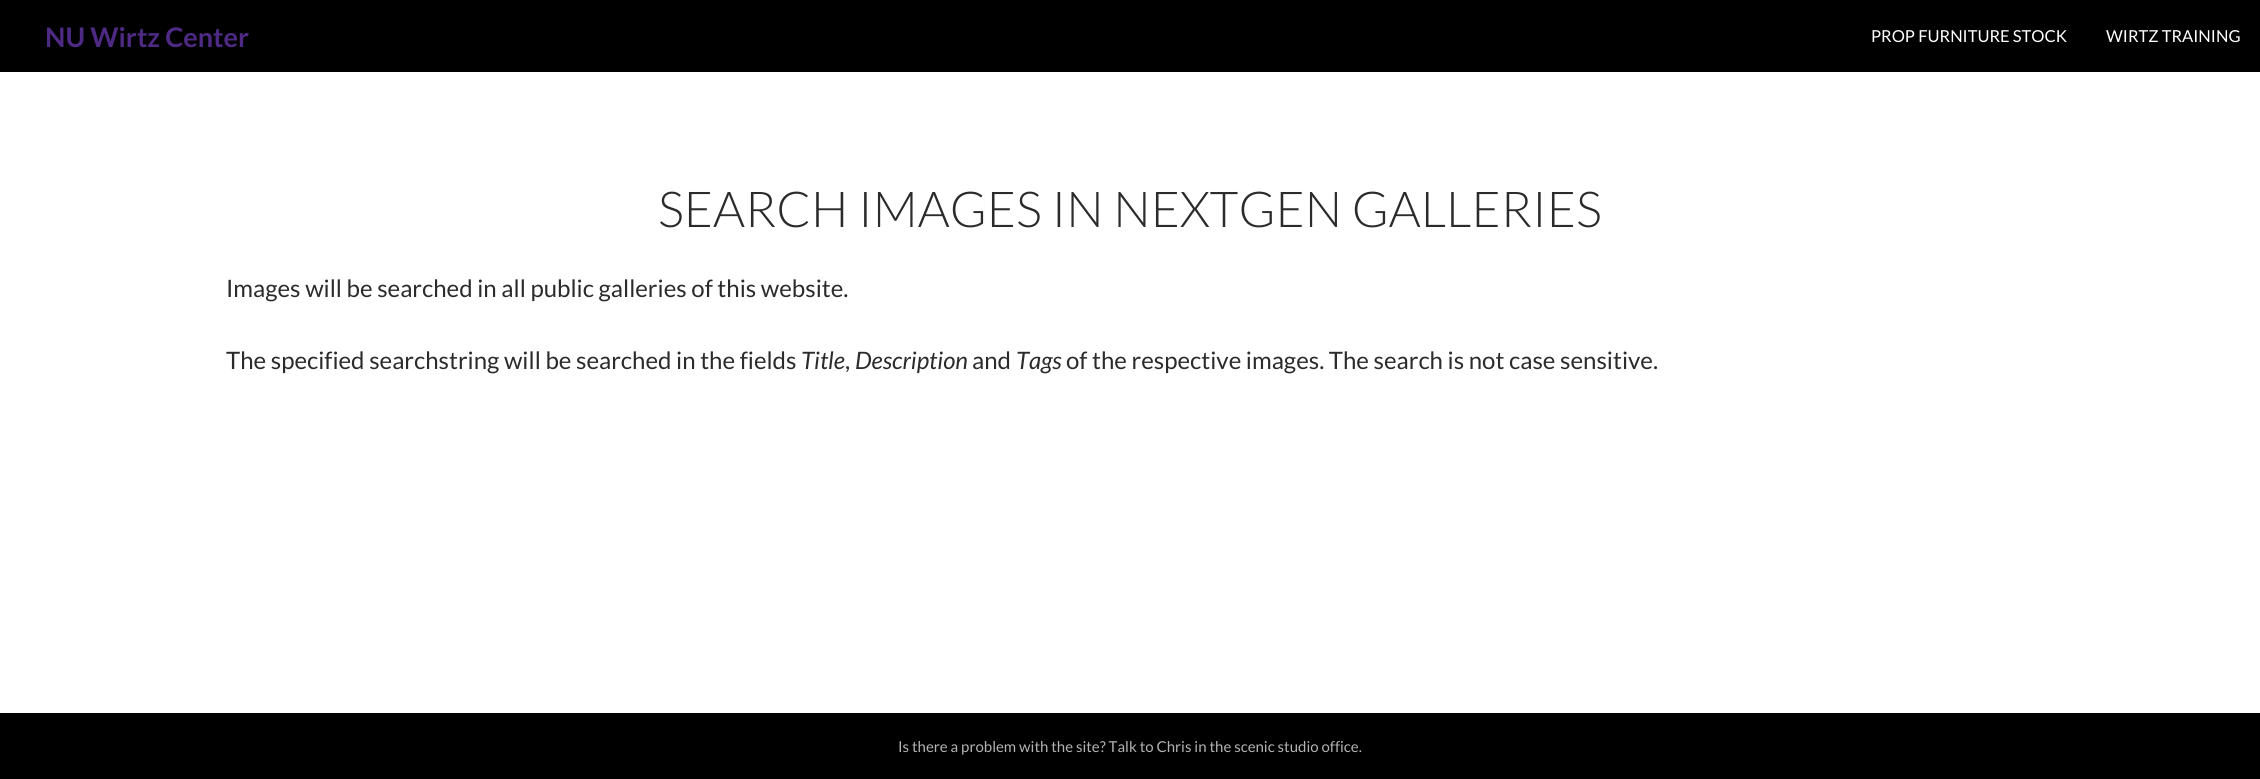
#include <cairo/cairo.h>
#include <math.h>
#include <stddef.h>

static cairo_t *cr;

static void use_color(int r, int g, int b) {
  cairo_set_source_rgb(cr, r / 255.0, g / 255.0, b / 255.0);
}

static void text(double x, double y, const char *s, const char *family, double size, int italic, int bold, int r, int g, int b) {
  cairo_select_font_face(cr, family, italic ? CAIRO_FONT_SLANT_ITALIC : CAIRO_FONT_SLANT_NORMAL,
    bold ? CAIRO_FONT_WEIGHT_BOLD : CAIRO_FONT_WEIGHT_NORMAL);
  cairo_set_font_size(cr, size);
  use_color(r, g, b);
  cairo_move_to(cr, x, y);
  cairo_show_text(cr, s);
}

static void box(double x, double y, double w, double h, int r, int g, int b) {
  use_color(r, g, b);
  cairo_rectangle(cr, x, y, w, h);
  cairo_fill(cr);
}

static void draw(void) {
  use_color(255, 255, 255);
  cairo_paint(cr);
  box(0, 0, 2260, 72, 0, 0, 0);
  box(0, 713, 2260, 66, 0, 0, 0);
  text(45, 47, "NU Wirtz Center", "Lato", 27, 0, 1, 78, 42, 132);
  text(1871, 42, "PROP FURNITURE STOCK", "Lato", 16.5, 0, 0, 255, 255, 255);
  text(2106, 42, "WIRTZ TRAINING", "Lato", 16.5, 0, 0, 255, 255, 255);
  text(658, 227, "SEARCH IMAGES IN NEXTGEN GALLERIES", "Lato Light", 49.5, 0, 0, 43, 43, 43);
  text(226, 297, "Images will be searched in all public galleries of this website.", "Lato", 24, 0, 0, 43, 43, 43);
  text(226, 369, "The specified searchstring will be searched in the fields", "Lato", 24, 0, 0, 43, 43, 43);
  text(801, 369, "Title", "Lato", 24, 1, 0, 43, 43, 43);
  text(845, 369, ",", "Lato", 24, 0, 0, 43, 43, 43);
  text(855, 369, "Description", "Lato", 24, 1, 0, 43, 43, 43);
  text(972, 369, "and", "Lato", 24, 0, 0, 43, 43, 43);
  text(1016, 369, "Tags", "Lato", 24, 1, 0, 43, 43, 43);
  text(1066, 369, "of the respective images. The search is not case sensitive.", "Lato", 24, 0, 0, 43, 43, 43);
  text(898, 752, "Is there a problem with the site? Talk to Chris in the scenic studio office.", "Lato", 15, 0, 0, 179, 179, 179);
}

int main(void) {
  cairo_surface_t *surface = cairo_image_surface_create(CAIRO_FORMAT_RGB24, 2260, 779);
  cr = cairo_create(surface);
  cairo_font_options_t *options = cairo_font_options_create();
  cairo_font_options_set_hint_metrics(options, CAIRO_HINT_METRICS_OFF);
  cairo_font_options_set_hint_style(options, CAIRO_HINT_STYLE_NONE);
  cairo_set_font_options(cr, options);
  cairo_set_miter_limit(cr, 4);
  draw();
  cairo_surface_write_to_png(surface, "out.png");
  cairo_font_options_destroy(options);
  cairo_destroy(cr);
  cairo_surface_destroy(surface);
  return 0;
}
